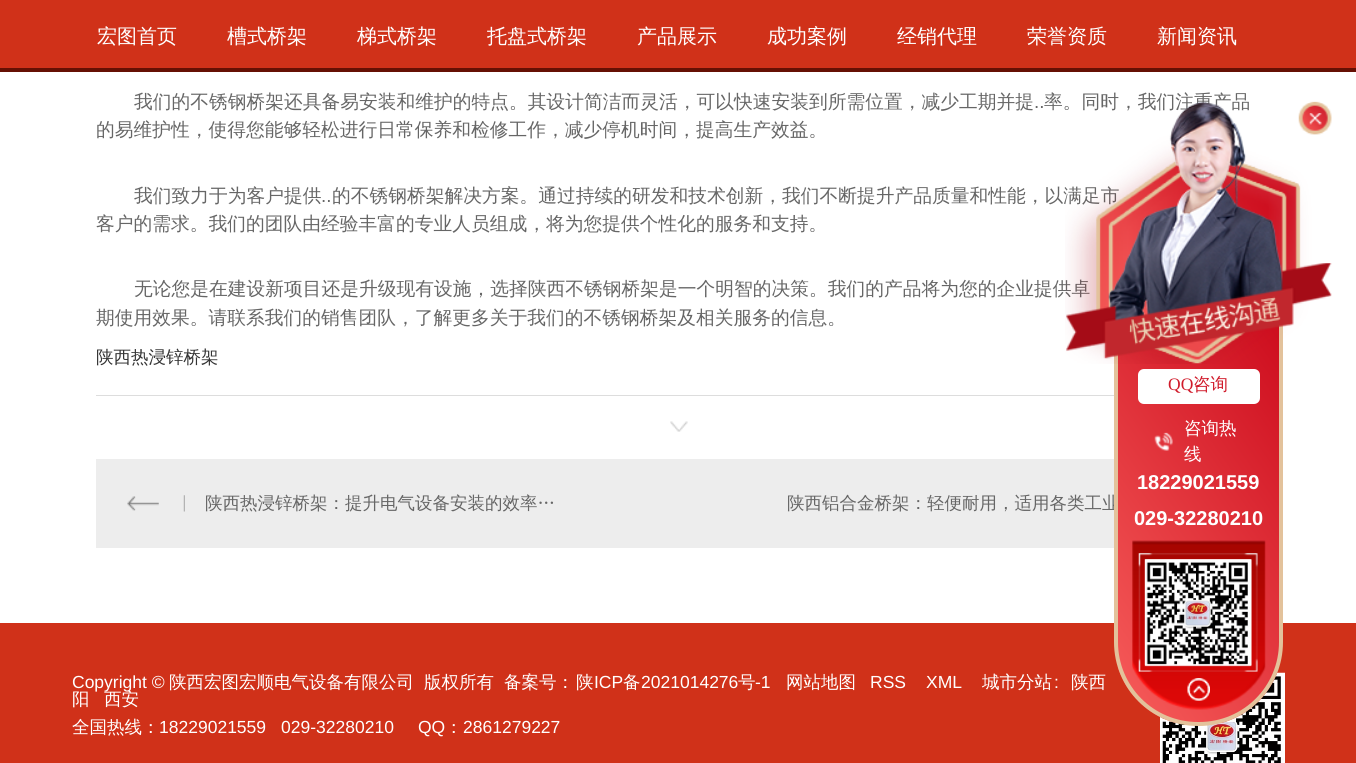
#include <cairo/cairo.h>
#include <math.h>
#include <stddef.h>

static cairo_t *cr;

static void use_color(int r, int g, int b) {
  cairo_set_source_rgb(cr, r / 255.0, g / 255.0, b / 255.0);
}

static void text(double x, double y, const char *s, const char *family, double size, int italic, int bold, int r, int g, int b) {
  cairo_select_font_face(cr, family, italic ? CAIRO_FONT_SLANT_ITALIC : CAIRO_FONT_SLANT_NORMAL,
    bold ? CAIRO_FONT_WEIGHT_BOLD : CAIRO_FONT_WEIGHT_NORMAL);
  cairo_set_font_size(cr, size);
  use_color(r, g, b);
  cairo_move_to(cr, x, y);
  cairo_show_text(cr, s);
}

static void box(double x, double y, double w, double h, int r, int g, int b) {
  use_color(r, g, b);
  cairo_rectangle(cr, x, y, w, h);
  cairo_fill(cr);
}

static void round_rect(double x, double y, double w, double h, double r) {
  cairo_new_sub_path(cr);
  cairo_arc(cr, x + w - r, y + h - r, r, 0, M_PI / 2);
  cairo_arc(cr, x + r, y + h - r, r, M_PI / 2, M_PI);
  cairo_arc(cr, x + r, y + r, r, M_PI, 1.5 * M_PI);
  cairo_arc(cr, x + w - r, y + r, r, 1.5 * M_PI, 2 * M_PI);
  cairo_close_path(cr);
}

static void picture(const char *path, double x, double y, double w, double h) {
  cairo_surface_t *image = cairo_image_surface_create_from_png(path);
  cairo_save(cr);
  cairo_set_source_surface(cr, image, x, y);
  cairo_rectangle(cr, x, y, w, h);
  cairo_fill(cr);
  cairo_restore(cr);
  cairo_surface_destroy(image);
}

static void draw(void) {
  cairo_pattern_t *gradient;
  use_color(255, 255, 255);
  cairo_paint(cr);
  box(0, 0, 1356, 68, 208, 49, 25);
  box(0, 68, 1356, 4, 102, 16, 4);
  box(96, 395, 1018, 1, 221, 221, 221);
  picture("img_01.png", 670, 421, 18, 11);
  box(96, 459, 1018, 89, 237, 237, 237);
  picture("img_02.png", 127, 495, 58, 17);
  box(0, 623, 1356, 140, 208, 49, 25);
  picture("img_10.png", 1160, 672, 125, 91);
  text(97, 43, "宏图首页", "WenQuanYi Zen Hei Medium", 20, 0, 0, 255, 255, 255);
  text(227, 43, "槽式桥架", "WenQuanYi Zen Hei Medium", 20, 0, 0, 255, 255, 255);
  text(357, 43, "梯式桥架", "WenQuanYi Zen Hei Medium", 20, 0, 0, 255, 255, 255);
  text(487, 43, "托盘式桥架", "WenQuanYi Zen Hei Medium", 20, 0, 0, 255, 255, 255);
  text(637, 43, "产品展示", "WenQuanYi Zen Hei Medium", 20, 0, 0, 255, 255, 255);
  text(767, 43, "成功案例", "WenQuanYi Zen Hei Medium", 20, 0, 0, 255, 255, 255);
  text(897, 43, "经销代理", "WenQuanYi Zen Hei Medium", 20, 0, 0, 255, 255, 255);
  text(1027, 43, "荣誉资质", "WenQuanYi Zen Hei Medium", 20, 0, 0, 255, 255, 255);
  text(1157, 43, "新闻资讯", "WenQuanYi Zen Hei Medium", 20, 0, 0, 255, 255, 255);
  text(134, 108, "我们的不锈钢桥架还具备易安装和维护的特点。其设计简洁而灵活，可以快速安装到所需位置，减少工期并提", "WenQuanYi Zen Hei Medium", 18.75, 0, 0, 102, 102, 102);
  text(1034, 108, "..", "Liberation Sans", 18.75, 0, 0, 102, 102, 102);
  text(1044, 108, "率。同时，我们注重产品", "WenQuanYi Zen Hei Medium", 18.75, 0, 0, 102, 102, 102);
  text(96, 136, "的易维护性，使得您能够轻松进行日常保养和检修工作，减少停机时间，提高生产效益。", "WenQuanYi Zen Hei Medium", 18.75, 0, 0, 102, 102, 102);
  text(134, 202, "我们致力于为客户提供", "WenQuanYi Zen Hei Medium", 18.75, 0, 0, 102, 102, 102);
  text(321, 202, "..", "Liberation Sans", 18.75, 0, 0, 102, 102, 102);
  text(332, 202, "的不锈钢桥架解决方案。通过持续的研发和技术创新，我们不断提升产品质量和性能，以满足市", "WenQuanYi Zen Hei Medium", 18.75, 0, 0, 102, 102, 102);
  text(96, 230, "客户的需求。我们的团队由经验丰富的专业人员组成，将为您提供个性化的服务和支持。", "WenQuanYi Zen Hei Medium", 18.75, 0, 0, 102, 102, 102);
  text(134, 295, "无论您是在建设新项目还是升级现有设施，选择陕西不锈钢桥架是一个明智的决策。我们的产品将为您的企业提供卓", "WenQuanYi Zen Hei Medium", 18.75, 0, 0, 102, 102, 102);
  text(96, 324, "期使用效果。请联系我们的销售团队，了解更多关于我们的不锈钢桥架及相关服务的信息。", "WenQuanYi Zen Hei Medium", 18.75, 0, 0, 102, 102, 102);
  text(96, 363, "陕西热浸锌桥架", "WenQuanYi Zen Hei Medium", 17.5, 0, 0, 51, 51, 51);
  text(205, 509, "陕西热浸锌桥架：提升电气设备安装的效率…", "WenQuanYi Zen Hei Medium", 17.5, 0, 0, 102, 102, 102);
  text(787, 509, "陕西铝合金桥架：轻便耐用，适用各类工业", "WenQuanYi Zen Hei Medium", 17.5, 0, 0, 102, 102, 102);
  cairo_save(cr);
  cairo_new_path(cr);
  cairo_move_to(cr, 1125, 303);
  cairo_line_to(cr, 1272, 303);
  cairo_curve_to(cr, 1278, 303, 1283, 308, 1283, 314);
  cairo_line_to(cr, 1283, 642);
  cairo_curve_to(cr, 1283, 688.5, 1245.5, 726, 1199, 726);
  cairo_line_to(cr, 1198, 726);
  cairo_curve_to(cr, 1151.5, 726, 1114, 688.5, 1114, 642);
  cairo_line_to(cr, 1114, 314);
  cairo_curve_to(cr, 1114, 308, 1119, 303, 1125, 303);
  cairo_close_path(cr);
  cairo_clip(cr);
  gradient = cairo_pattern_create_linear(1046, 620, 1350, 407);
  cairo_pattern_add_color_stop_rgba(gradient, 0, 0.969, 0.365, 0.357, 1);
  cairo_pattern_add_color_stop_rgba(gradient, 1, 0.8, 0.043, 0.11, 1);
  cairo_set_source(cr, gradient);
  cairo_pattern_destroy(gradient);
  cairo_rectangle(cr, 1118, 325, 161, 398);
  cairo_fill(cr);
  cairo_restore(cr);
  cairo_new_path(cr);
  cairo_move_to(cr, 1125, 305);
  cairo_line_to(cr, 1272, 305);
  cairo_curve_to(cr, 1277, 305, 1281, 309, 1281, 314);
  cairo_line_to(cr, 1281, 642);
  cairo_curve_to(cr, 1281, 687.5, 1244.5, 724, 1199, 724);
  cairo_line_to(cr, 1198, 724);
  cairo_curve_to(cr, 1152.5, 724, 1116, 687.5, 1116, 642);
  cairo_line_to(cr, 1116, 314);
  cairo_curve_to(cr, 1116, 309, 1120, 305, 1125, 305);
  cairo_close_path(cr);
  use_color(227, 194, 155);
  cairo_set_line_width(cr, 4);
  cairo_stroke(cr);
  picture("img_04.png", 1065, 102, 267, 262);
  picture("img_03.png", 1298, 101, 34, 34);
  use_color(255, 255, 255);
  round_rect(1138, 369, 122, 35, 6);
  cairo_fill(cr);
  text(1168, 390, "QQ", "Liberation Serif", 17.5, 0, 0, 208, 26, 42);
  text(1193, 390, "咨询", "WenQuanYi Zen Hei Medium", 17.5, 0, 0, 208, 26, 42);
  picture("img_05.png", 1154, 432, 19, 19);
  text(1184, 434, "咨询热", "WenQuanYi Zen Hei Medium", 17.5, 0, 0, 255, 255, 255);
  text(1184, 460, "线", "WenQuanYi Zen Hei Medium", 17.5, 0, 0, 255, 255, 255);
  text(1137, 489, "18229021559", "Liberation Sans", 20, 0, 1, 255, 255, 255);
  text(1134, 525, "029-32280210", "Liberation Sans", 20, 0, 1, 255, 255, 255);
  picture("img_06.png", 1132, 540, 134, 170);
  picture("img_07.png", 1138, 553, 120, 119);
  picture("img_08.png", 1145, 559, 107, 107);
  picture("img_09.png", 1187, 678, 23, 23);
  text(72, 688, "Copyright ©", "Liberation Sans", 17.5, 0, 0, 255, 255, 255);
  text(169, 688, "陕西宏图宏顺电气设备有限公司", "WenQuanYi Zen Hei Medium", 17.5, 0, 0, 255, 255, 255);
  text(424, 688, "版权所有", "WenQuanYi Zen Hei Medium", 17.5, 0, 0, 255, 255, 255);
  text(504, 688, "备案号：", "WenQuanYi Zen Hei Medium", 17.5, 0, 0, 255, 255, 255);
  text(576, 688, "陕", "WenQuanYi Zen Hei Medium", 17.5, 0, 0, 255, 255, 255);
  text(594, 688, "ICP", "Liberation Sans", 17.5, 0, 0, 255, 255, 255);
  text(623, 688, "备", "WenQuanYi Zen Hei Medium", 17.5, 0, 0, 255, 255, 255);
  text(641, 688, "2021014276", "Liberation Sans", 17.5, 0, 0, 255, 255, 255);
  text(738, 688, "号", "WenQuanYi Zen Hei Medium", 17.5, 0, 0, 255, 255, 255);
  text(755, 688, "-1", "Liberation Sans", 17.5, 0, 0, 255, 255, 255);
  text(786, 688, "网站地图", "WenQuanYi Zen Hei Medium", 17.5, 0, 0, 255, 255, 255);
  text(870, 688, "RSS", "Liberation Sans", 17.5, 0, 0, 255, 255, 255);
  text(926, 688, "XML", "Liberation Sans", 17.5, 0, 0, 255, 255, 255);
  text(982, 688, "城市分站", "WenQuanYi Zen Hei Medium", 17.5, 0, 0, 255, 255, 255);
  text(1054, 688, ":", "Liberation Sans", 17.5, 0, 0, 255, 255, 255);
  text(1071, 688, "陕西", "WenQuanYi Zen Hei Medium", 17.5, 0, 0, 255, 255, 255);
  text(72, 705, "阳", "WenQuanYi Zen Hei Medium", 17.5, 0, 0, 255, 255, 255);
  text(104, 705, "西安", "WenQuanYi Zen Hei Medium", 17.5, 0, 0, 255, 255, 255);
  text(72, 733, "全国热线：", "WenQuanYi Zen Hei Medium", 17.5, 0, 0, 255, 255, 255);
  text(159, 733, "18229021559", "Liberation Sans", 17.5, 0, 0, 255, 255, 255);
  text(281, 733, "029-32280210", "Liberation Sans", 17.5, 0, 0, 255, 255, 255);
  text(418, 733, "QQ", "Liberation Sans", 17.5, 0, 0, 255, 255, 255);
  text(445, 733, "：", "WenQuanYi Zen Hei Medium", 17.5, 0, 0, 255, 255, 255);
  text(463, 733, "2861279227", "Liberation Sans", 17.5, 0, 0, 255, 255, 255);
}

int main(void) {
  cairo_surface_t *surface = cairo_image_surface_create(CAIRO_FORMAT_RGB24, 1356, 763);
  cr = cairo_create(surface);
  cairo_font_options_t *options = cairo_font_options_create();
  cairo_font_options_set_hint_metrics(options, CAIRO_HINT_METRICS_OFF);
  cairo_font_options_set_hint_style(options, CAIRO_HINT_STYLE_NONE);
  cairo_set_font_options(cr, options);
  cairo_set_miter_limit(cr, 4);
  draw();
  cairo_surface_write_to_png(surface, "out.png");
  cairo_font_options_destroy(options);
  cairo_destroy(cr);
  cairo_surface_destroy(surface);
  return 0;
}
